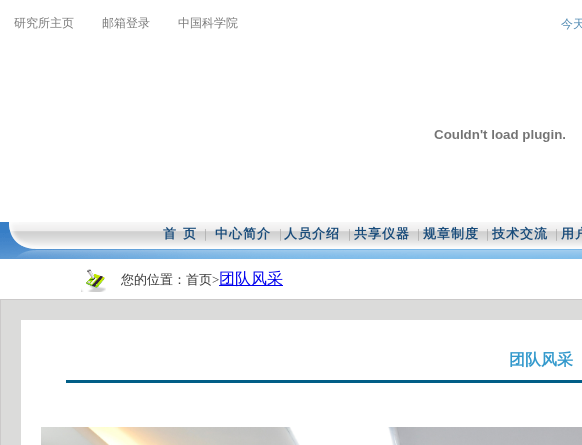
#include <cairo/cairo.h>
#include <math.h>
#include <stddef.h>

static cairo_t *cr;

static void use_color(int r, int g, int b) {
  cairo_set_source_rgb(cr, r / 255.0, g / 255.0, b / 255.0);
}

static void text(double x, double y, const char *s, const char *family, double size, int italic, int bold, int r, int g, int b) {
  cairo_select_font_face(cr, family, italic ? CAIRO_FONT_SLANT_ITALIC : CAIRO_FONT_SLANT_NORMAL,
    bold ? CAIRO_FONT_WEIGHT_BOLD : CAIRO_FONT_WEIGHT_NORMAL);
  cairo_set_font_size(cr, size);
  use_color(r, g, b);
  cairo_move_to(cr, x, y);
  cairo_show_text(cr, s);
}

static void spaced_text(double x, double y, const char *s, double letter, double word) {
  cairo_move_to(cr, x, y);
  while (*s) {
    char ch[5] = {0};
    int n = 0;
    do ch[n++] = *s++; while ((*s & 0xC0) == 0x80);
    cairo_show_text(cr, ch);
    cairo_rel_move_to(cr, letter + word * (*ch == ' '), 0);
  }
}

static void box(double x, double y, double w, double h, int r, int g, int b) {
  use_color(r, g, b);
  cairo_rectangle(cr, x, y, w, h);
  cairo_fill(cr);
}

static void picture(const char *path, double x, double y, double w, double h) {
  cairo_surface_t *image = cairo_image_surface_create_from_png(path);
  cairo_save(cr);
  cairo_set_source_surface(cr, image, x, y);
  cairo_rectangle(cr, x, y, w, h);
  cairo_fill(cr);
  cairo_restore(cr);
  cairo_surface_destroy(image);
}

static void draw(void) {
  use_color(255, 255, 255);
  cairo_paint(cr);
  picture("img_01.png", 434, 130, 131, 12);
  picture("img_02.png", 0, 222, 582, 37);
  picture("img_03.png", 81, 269, 25, 23);
  box(219, 285, 64, 1, 0, 0, 238);
  box(0, 299, 582, 146, 203, 201, 201);
  box(1, 300, 581, 145, 219, 219, 218);
  box(21, 320, 561, 125, 255, 255, 255);
  box(66, 380, 516, 3, 1, 94, 135);
  picture("img_04.png", 41, 427, 541, 18);
  text(14, 27, "研究所主页", "WenQuanYi Zen Hei Medium", 12, 0, 0, 121, 121, 121);
  text(102, 27, "邮箱登录", "WenQuanYi Zen Hei Medium", 12, 0, 0, 121, 121, 121);
  text(178, 27, "中国科学院", "WenQuanYi Zen Hei Medium", 12, 0, 0, 121, 121, 121);
  text(561, 28, "今天", "WenQuanYi Zen Hei Medium", 12, 0, 0, 81, 138, 178);
  cairo_select_font_face(cr, "WenQuanYi Zen Hei", CAIRO_FONT_SLANT_NORMAL, CAIRO_FONT_WEIGHT_BOLD);
  cairo_set_font_size(cr, 13);
  use_color(24, 75, 122);
  spaced_text(163, 238, "首", 1, 0);
  spaced_text(183, 238, "页", 1, 0);
  text(204, 238, "|", "Liberation Serif", 13, 0, 0, 162, 162, 162);
  cairo_select_font_face(cr, "WenQuanYi Zen Hei", CAIRO_FONT_SLANT_NORMAL, CAIRO_FONT_WEIGHT_BOLD);
  use_color(24, 75, 122);
  spaced_text(215, 238, "中心简介", 1, 0);
  text(279, 238, "|", "Liberation Serif", 13, 0, 0, 162, 162, 162);
  cairo_select_font_face(cr, "WenQuanYi Zen Hei", CAIRO_FONT_SLANT_NORMAL, CAIRO_FONT_WEIGHT_BOLD);
  use_color(24, 75, 122);
  spaced_text(284, 238, "人员介绍", 1, 0);
  text(348, 238, "|", "Liberation Serif", 13, 0, 0, 162, 162, 162);
  cairo_select_font_face(cr, "WenQuanYi Zen Hei", CAIRO_FONT_SLANT_NORMAL, CAIRO_FONT_WEIGHT_BOLD);
  use_color(24, 75, 122);
  spaced_text(354, 238, "共享仪器", 1, 0);
  text(417, 238, "|", "Liberation Serif", 13, 0, 0, 162, 162, 162);
  cairo_select_font_face(cr, "WenQuanYi Zen Hei", CAIRO_FONT_SLANT_NORMAL, CAIRO_FONT_WEIGHT_BOLD);
  use_color(24, 75, 122);
  spaced_text(423, 238, "规章制度", 1, 0);
  text(486, 238, "|", "Liberation Serif", 13, 0, 0, 162, 162, 162);
  cairo_select_font_face(cr, "WenQuanYi Zen Hei", CAIRO_FONT_SLANT_NORMAL, CAIRO_FONT_WEIGHT_BOLD);
  use_color(24, 75, 122);
  spaced_text(492, 238, "技术交流", 1, 0);
  text(555, 238, "|", "Liberation Serif", 13, 0, 0, 162, 162, 162);
  cairo_select_font_face(cr, "WenQuanYi Zen Hei", CAIRO_FONT_SLANT_NORMAL, CAIRO_FONT_WEIGHT_BOLD);
  use_color(24, 75, 122);
  spaced_text(561, 238, "用户", 1, 0);
  text(121, 284, "您的位置：首页", "WenQuanYi Zen Hei Medium", 13, 0, 0, 54, 54, 54);
  text(212, 284, ">", "Liberation Serif", 13, 0, 0, 54, 54, 54);
  text(219, 284, "团队风采", "WenQuanYi Zen Hei Medium", 16, 0, 0, 0, 0, 238);
  text(509, 365, "团队风采", "WenQuanYi Zen Hei", 16, 0, 1, 51, 153, 204);
}

int main(void) {
  cairo_surface_t *surface = cairo_image_surface_create(CAIRO_FORMAT_RGB24, 582, 445);
  cr = cairo_create(surface);
  cairo_font_options_t *options = cairo_font_options_create();
  cairo_font_options_set_hint_metrics(options, CAIRO_HINT_METRICS_OFF);
  cairo_font_options_set_hint_style(options, CAIRO_HINT_STYLE_NONE);
  cairo_set_font_options(cr, options);
  cairo_set_miter_limit(cr, 4);
  draw();
  cairo_surface_write_to_png(surface, "out.png");
  cairo_font_options_destroy(options);
  cairo_destroy(cr);
  cairo_surface_destroy(surface);
  return 0;
}
